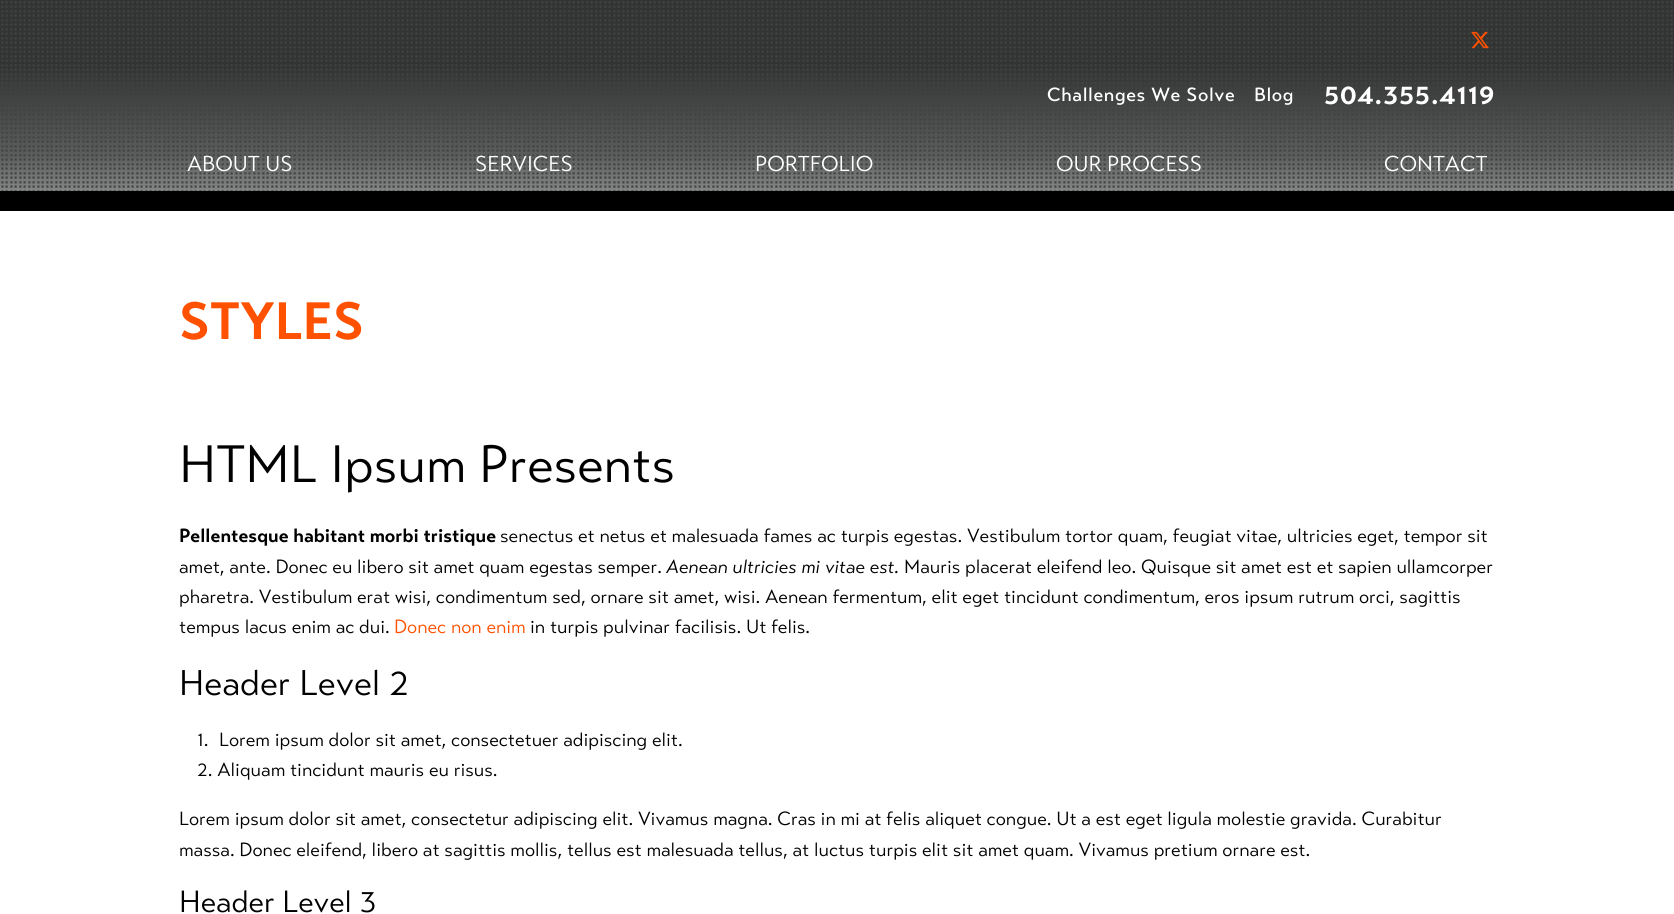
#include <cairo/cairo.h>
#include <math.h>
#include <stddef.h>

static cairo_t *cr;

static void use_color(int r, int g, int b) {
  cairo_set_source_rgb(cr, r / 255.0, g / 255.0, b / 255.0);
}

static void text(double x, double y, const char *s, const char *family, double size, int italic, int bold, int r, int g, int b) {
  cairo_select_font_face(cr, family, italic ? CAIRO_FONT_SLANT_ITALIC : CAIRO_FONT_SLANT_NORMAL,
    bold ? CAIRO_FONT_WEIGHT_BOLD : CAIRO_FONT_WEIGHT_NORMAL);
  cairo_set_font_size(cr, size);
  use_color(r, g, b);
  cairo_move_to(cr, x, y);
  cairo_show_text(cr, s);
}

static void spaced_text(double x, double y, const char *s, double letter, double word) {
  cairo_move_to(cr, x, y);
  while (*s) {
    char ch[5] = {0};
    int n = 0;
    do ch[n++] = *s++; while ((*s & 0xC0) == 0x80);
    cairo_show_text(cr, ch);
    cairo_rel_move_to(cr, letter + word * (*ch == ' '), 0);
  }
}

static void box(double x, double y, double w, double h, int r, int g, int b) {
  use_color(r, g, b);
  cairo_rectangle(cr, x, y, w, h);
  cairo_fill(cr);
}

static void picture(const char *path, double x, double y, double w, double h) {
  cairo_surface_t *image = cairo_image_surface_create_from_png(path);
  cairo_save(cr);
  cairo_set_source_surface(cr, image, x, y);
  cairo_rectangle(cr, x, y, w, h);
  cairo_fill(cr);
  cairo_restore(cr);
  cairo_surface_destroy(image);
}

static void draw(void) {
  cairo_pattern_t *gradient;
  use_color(255, 255, 255);
  cairo_paint(cr);
  gradient = cairo_pattern_create_linear(837, 0, 837, 191);
  cairo_pattern_add_color_stop_rgba(gradient, 0, 0.2, 0.2, 0.2, 1);
  cairo_pattern_add_color_stop_rgba(gradient, 0.35, 0.2, 0.2, 0.2, 1);
  cairo_pattern_add_color_stop_rgba(gradient, 0.81, 0.361, 0.361, 0.361, 1);
  cairo_pattern_add_color_stop_rgba(gradient, 1, 0.522, 0.522, 0.522, 1);
  cairo_set_source(cr, gradient);
  cairo_pattern_destroy(gradient);
  cairo_rectangle(cr, 0, 0, 1674, 191);
  cairo_fill(cr);
  box(0, 191, 1674, 20, 0, 0, 0);
  picture("img_01.png", 1, 1, 1672, 190);
  picture("img_02.png", 1471, 31, 18, 18);
  cairo_select_font_face(cr, "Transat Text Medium", CAIRO_FONT_SLANT_NORMAL, CAIRO_FONT_WEIGHT_NORMAL);
  cairo_set_font_size(cr, 19);
  use_color(255, 255, 255);
  spaced_text(1047, 101, "Challenges We Solve", 0.6, 0);
  spaced_text(1254, 101, "Blog", 0.6, 0);
  cairo_select_font_face(cr, "Transat Text", CAIRO_FONT_SLANT_NORMAL, CAIRO_FONT_WEIGHT_BOLD);
  cairo_set_font_size(cr, 26.5);
  spaced_text(1324, 104, "504.355.4119", 0.6, 0);
  text(187, 171, "ABOUT US", "Transat Text", 21.5, 0, 0, 255, 255, 255);
  text(475, 171, "SERVICES", "Transat Text", 21.5, 0, 0, 255, 255, 255);
  text(755, 171, "PORTFOLIO", "Transat Text", 21.5, 0, 0, 255, 255, 255);
  text(1056, 171, "OUR PROCESS", "Transat Text", 21.5, 0, 0, 255, 255, 255);
  text(1384, 171, "CONTACT", "Transat Text", 21.5, 0, 0, 255, 255, 255);
  text(179, 339, "STYLES", "Transat Text", 52.25, 0, 1, 255, 81, 0);
  text(179, 482, "HTML Ipsum Presents", "Transat Text", 52.25, 0, 0, 0, 0, 0);
  text(179, 542, "Pellentesque habitant morbi tristique", "Transat Text", 19, 0, 1, 0, 0, 0);
  text(500, 542, "senectus et netus et malesuada fames ac turpis egestas. Vestibulum tortor quam, feugiat vitae, ultricies eget, tempor sit", "Transat Text", 19, 0, 0, 0, 0, 0);
  text(179, 573, "amet, ante. Donec eu libero sit amet quam egestas semper.", "Transat Text", 19, 0, 0, 0, 0, 0);
  text(666, 573, "Aenean ultricies mi vitae est.", "Transat Text", 19, 1, 0, 0, 0, 0);
  text(904, 573, "Mauris placerat eleifend leo. Quisque sit amet est et sapien ullamcorper", "Transat Text", 19, 0, 0, 0, 0, 0);
  text(179, 603, "pharetra. Vestibulum erat wisi, condimentum sed, ornare sit amet, wisi. Aenean fermentum, elit eget tincidunt condimentum, eros ipsum rutrum orci, sagittis", "Transat Text", 19, 0, 0, 0, 0, 0);
  text(179, 633, "tempus lacus enim ac dui.", "Transat Text", 19, 0, 0, 0, 0, 0);
  text(394, 633, "Donec non enim", "Transat Text", 19, 0, 0, 255, 81, 0);
  text(530, 633, "in turpis pulvinar facilisis. Ut felis.", "Transat Text", 19, 0, 0, 0, 0, 0);
  text(179, 695, "Header Level 2", "Transat Text", 35.5, 0, 0, 0, 0, 0);
  text(197, 746, "1.", "Transat Text", 19, 0, 0, 0, 0, 0);
  text(219, 746, "Lorem ipsum dolor sit amet, consectetuer adipiscing elit.", "Transat Text", 19, 0, 0, 0, 0, 0);
  text(197, 776, "2. Aliquam tincidunt mauris eu risus.", "Transat Text", 19, 0, 0, 0, 0, 0);
  text(179, 825, "Lorem ipsum dolor sit amet, consectetur adipiscing elit. Vivamus magna. Cras in mi at felis aliquet congue. Ut a est eget ligula molestie gravida. Curabitur", "Transat Text", 19, 0, 0, 0, 0, 0);
  text(179, 856, "massa. Donec eleifend, libero at sagittis mollis, tellus est malesuada tellus, at luctus turpis elit sit amet quam. Vivamus pretium ornare est.", "Transat Text", 19, 0, 0, 0, 0, 0);
  text(179, 912, "Header Level 3", "Transat Text", 30.5, 0, 0, 0, 0, 0);
}

int main(void) {
  cairo_surface_t *surface = cairo_image_surface_create(CAIRO_FORMAT_RGB24, 1674, 914);
  cr = cairo_create(surface);
  cairo_font_options_t *options = cairo_font_options_create();
  cairo_font_options_set_hint_metrics(options, CAIRO_HINT_METRICS_OFF);
  cairo_font_options_set_hint_style(options, CAIRO_HINT_STYLE_NONE);
  cairo_set_font_options(cr, options);
  cairo_set_miter_limit(cr, 4);
  draw();
  cairo_surface_write_to_png(surface, "out.png");
  cairo_font_options_destroy(options);
  cairo_destroy(cr);
  cairo_surface_destroy(surface);
  return 0;
}
